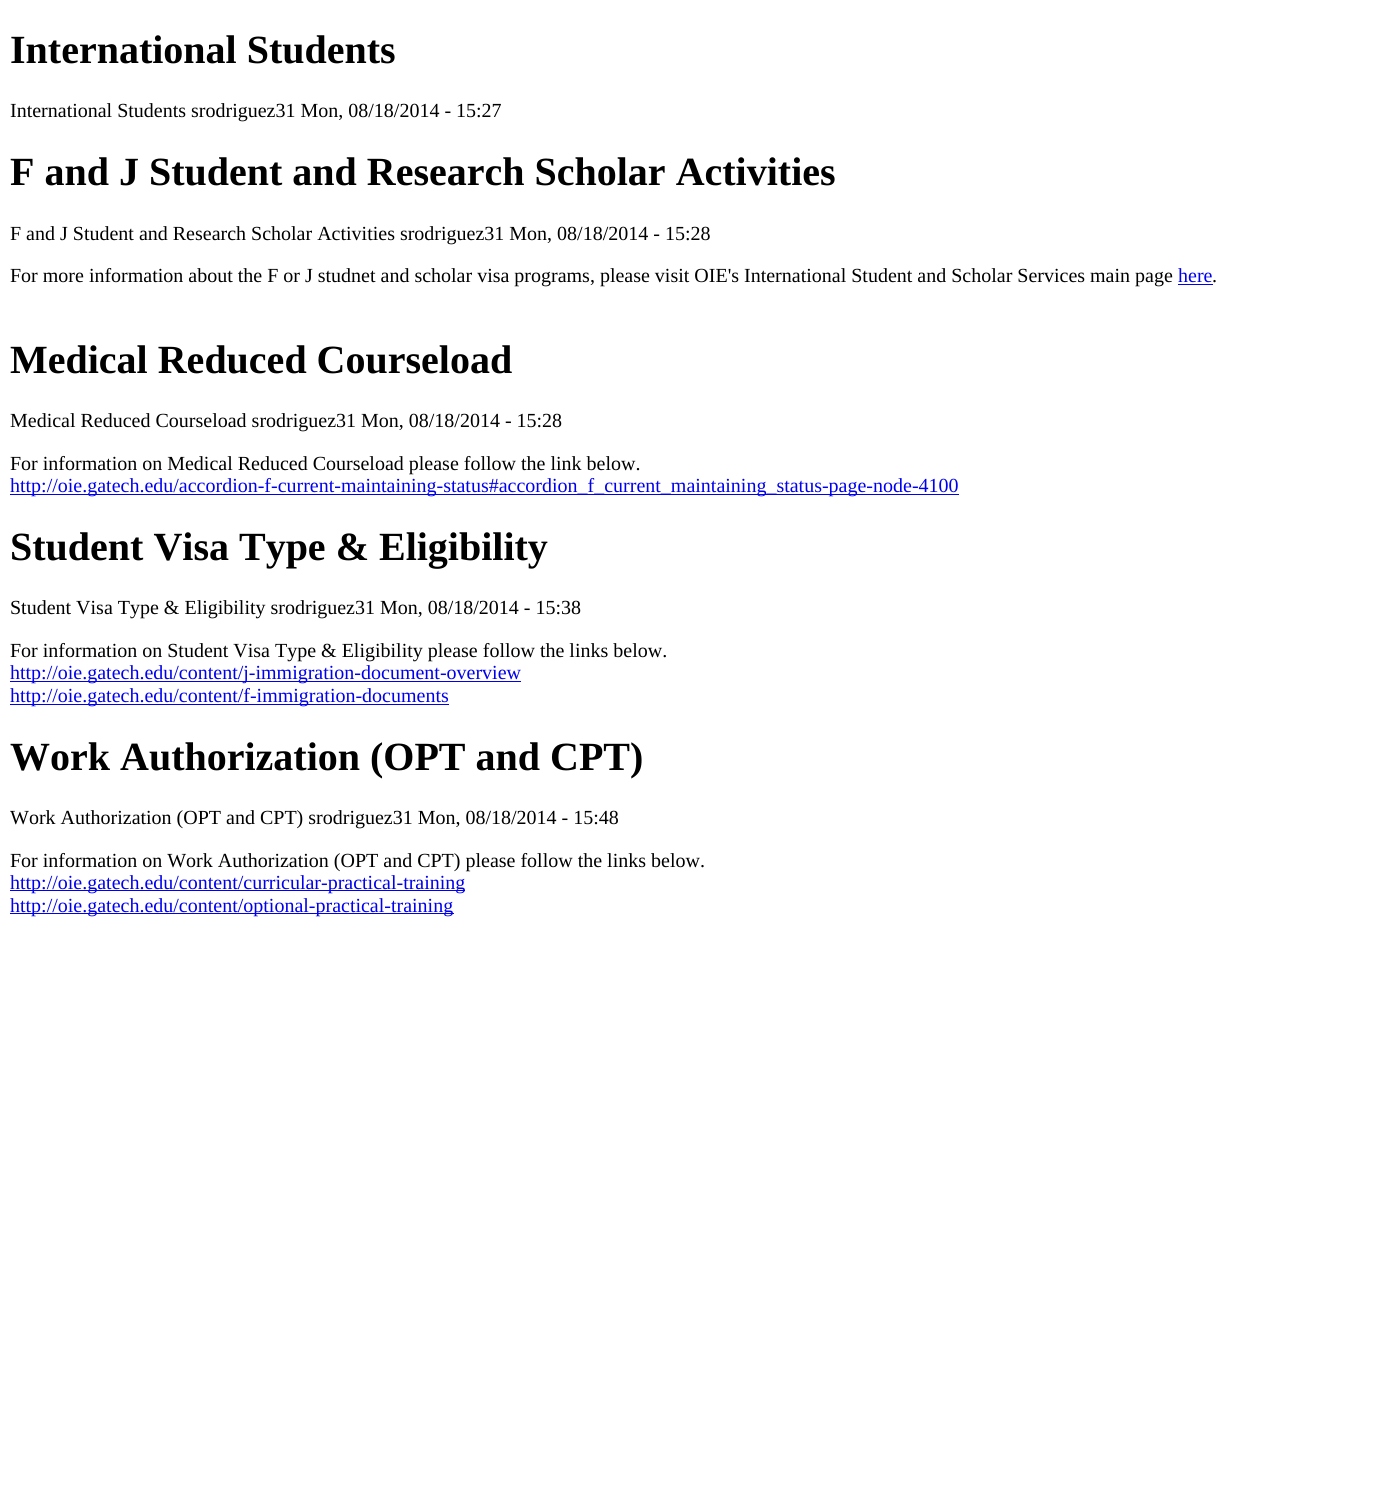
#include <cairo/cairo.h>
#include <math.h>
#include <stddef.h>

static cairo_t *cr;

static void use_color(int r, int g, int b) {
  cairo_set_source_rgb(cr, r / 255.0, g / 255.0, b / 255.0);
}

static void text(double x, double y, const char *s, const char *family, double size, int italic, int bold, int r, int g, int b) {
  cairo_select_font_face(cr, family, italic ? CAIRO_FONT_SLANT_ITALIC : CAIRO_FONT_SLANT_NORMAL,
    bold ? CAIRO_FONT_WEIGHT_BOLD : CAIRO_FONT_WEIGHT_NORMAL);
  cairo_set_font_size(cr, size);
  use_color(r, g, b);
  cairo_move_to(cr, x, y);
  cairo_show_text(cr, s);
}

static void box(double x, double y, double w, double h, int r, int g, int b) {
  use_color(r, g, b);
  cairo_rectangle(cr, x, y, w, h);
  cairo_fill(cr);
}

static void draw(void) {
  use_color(255, 255, 255);
  cairo_paint(cr);
  box(1178, 284, 35, 1, 0, 0, 238);
  box(10, 494, 949, 1, 0, 0, 238);
  box(10, 681, 511, 1, 0, 0, 238);
  box(10, 704, 439, 1, 0, 0, 238);
  box(10, 890, 455, 1, 0, 0, 238);
  box(10, 913, 444, 1, 0, 0, 238);
  text(10, 63, "International Students", "Liberation Serif", 40, 0, 1, 0, 0, 0);
  text(10, 117, "International Students srodriguez31 Mon, 08/18/2014 - 15:27", "Liberation Serif", 20, 0, 0, 0, 0, 0);
  text(10, 185, "F and J Student and Research Scholar Activities", "Liberation Serif", 40, 0, 1, 0, 0, 0);
  text(10, 240, "F and J Student and Research Scholar Activities srodriguez31 Mon, 08/18/2014 - 15:28", "Liberation Serif", 20, 0, 0, 0, 0, 0);
  text(10, 282, "For more information about the F or J studnet and scholar visa programs, please visit OIE's International Student and Scholar Services main page", "Liberation Serif", 20, 0, 0, 0, 0, 0);
  text(1178, 282, "here", "Liberation Serif", 20, 0, 0, 0, 0, 238);
  text(1212, 282, ".", "Liberation Serif", 20, 0, 0, 0, 0, 0);
  text(10, 373, "Medical Reduced Courseload", "Liberation Serif", 40, 0, 1, 0, 0, 0);
  text(10, 427, "Medical Reduced Courseload srodriguez31 Mon, 08/18/2014 - 15:28", "Liberation Serif", 20, 0, 0, 0, 0, 0);
  text(10, 470, "For information on Medical Reduced Courseload please follow the link below.", "Liberation Serif", 20, 0, 0, 0, 0, 0);
  text(10, 492, "http://oie.gatech.edu/accordion-f-current-maintaining-status#accordion_f_current_maintaining_status-page-node-4100", "Liberation Serif", 20, 0, 0, 0, 0, 238);
  text(10, 560, "Student Visa Type & Eligibility", "Liberation Serif", 40, 0, 1, 0, 0, 0);
  text(10, 614, "Student Visa Type & Eligibility srodriguez31 Mon, 08/18/2014 - 15:38", "Liberation Serif", 20, 0, 0, 0, 0, 0);
  text(10, 657, "For information on Student Visa Type & Eligibility please follow the links below.", "Liberation Serif", 20, 0, 0, 0, 0, 0);
  text(10, 679, "http://oie.gatech.edu/content/j-immigration-document-overview", "Liberation Serif", 20, 0, 0, 0, 0, 238);
  text(10, 702, "http://oie.gatech.edu/content/f-immigration-documents", "Liberation Serif", 20, 0, 0, 0, 0, 238);
  text(10, 770, "Work Authorization (OPT and CPT)", "Liberation Serif", 40, 0, 1, 0, 0, 0);
  text(10, 824, "Work Authorization (OPT and CPT) srodriguez31 Mon, 08/18/2014 - 15:48", "Liberation Serif", 20, 0, 0, 0, 0, 0);
  text(10, 867, "For information on Work Authorization (OPT and CPT) please follow the links below.", "Liberation Serif", 20, 0, 0, 0, 0, 0);
  text(10, 889, "http://oie.gatech.edu/content/curricular-practical-training", "Liberation Serif", 20, 0, 0, 0, 0, 238);
  text(10, 912, "http://oie.gatech.edu/content/optional-practical-training", "Liberation Serif", 20, 0, 0, 0, 0, 238);
}

int main(void) {
  cairo_surface_t *surface = cairo_image_surface_create(CAIRO_FORMAT_RGB24, 1391, 1509);
  cr = cairo_create(surface);
  cairo_font_options_t *options = cairo_font_options_create();
  cairo_font_options_set_hint_metrics(options, CAIRO_HINT_METRICS_OFF);
  cairo_font_options_set_hint_style(options, CAIRO_HINT_STYLE_NONE);
  cairo_set_font_options(cr, options);
  cairo_set_miter_limit(cr, 4);
  draw();
  cairo_surface_write_to_png(surface, "out.png");
  cairo_font_options_destroy(options);
  cairo_destroy(cr);
  cairo_surface_destroy(surface);
  return 0;
}
